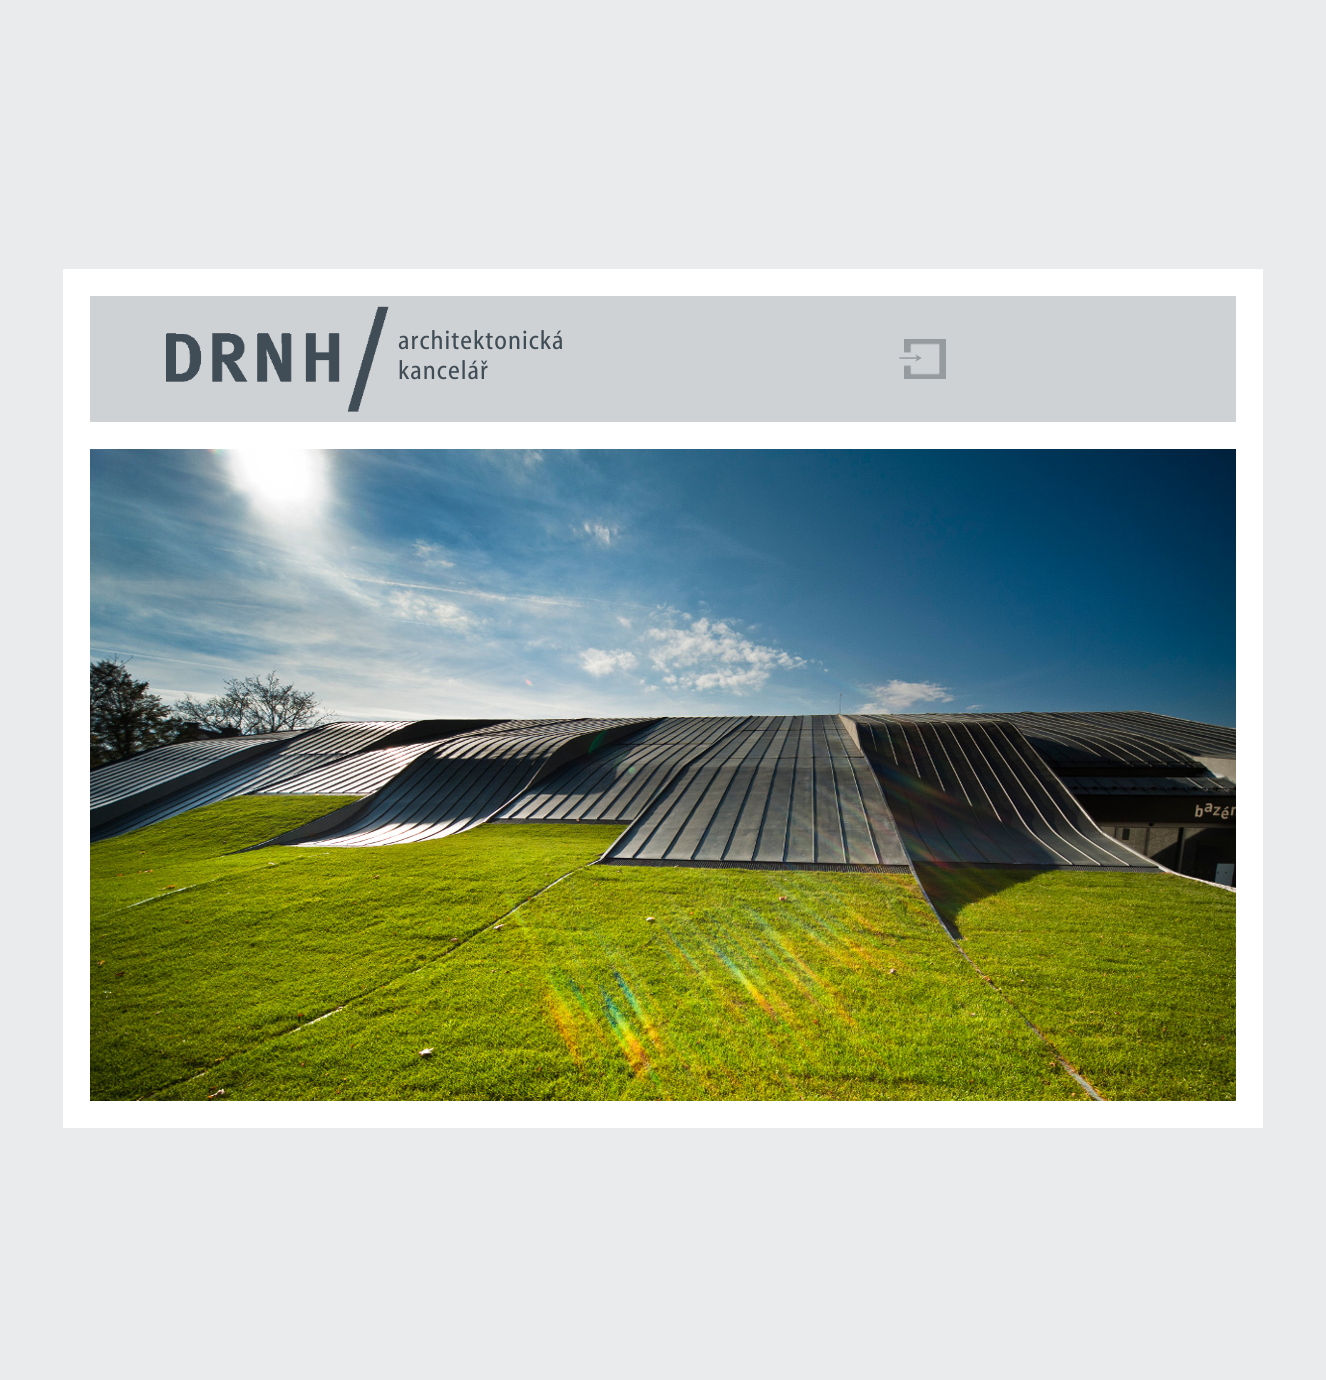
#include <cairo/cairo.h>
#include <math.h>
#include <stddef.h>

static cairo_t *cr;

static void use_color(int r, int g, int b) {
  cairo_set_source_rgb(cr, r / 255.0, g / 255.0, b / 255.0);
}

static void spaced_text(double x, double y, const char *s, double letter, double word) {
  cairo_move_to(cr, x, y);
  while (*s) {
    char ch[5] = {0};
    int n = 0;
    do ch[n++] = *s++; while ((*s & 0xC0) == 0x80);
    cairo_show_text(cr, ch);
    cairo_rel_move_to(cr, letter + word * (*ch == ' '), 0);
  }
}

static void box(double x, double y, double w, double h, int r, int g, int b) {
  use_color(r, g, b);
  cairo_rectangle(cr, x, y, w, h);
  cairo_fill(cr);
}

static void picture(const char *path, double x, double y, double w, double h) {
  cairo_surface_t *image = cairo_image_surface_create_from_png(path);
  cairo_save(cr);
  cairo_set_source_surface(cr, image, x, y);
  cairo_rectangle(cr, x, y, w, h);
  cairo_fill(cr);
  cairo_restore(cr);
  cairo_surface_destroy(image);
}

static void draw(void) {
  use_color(233, 235, 236);
  cairo_paint(cr);
  box(63, 269, 1200, 859, 255, 255, 255);
  box(90, 296, 1146, 126, 207, 210, 212);
  picture("img_01.png", 166, 306, 223, 106);
  picture("img_02.png", 904, 339, 42, 40);
  picture("img_03.png", 90, 449, 1146, 652);
  cairo_select_font_face(cr, "Myriad", CAIRO_FONT_SLANT_NORMAL, CAIRO_FONT_WEIGHT_NORMAL);
  cairo_set_font_size(cr, 27);
  use_color(64, 76, 86);
  spaced_text(398, 349, "architektonická", 1, 0);
  spaced_text(398, 379, "kancelář", 1, 0);
  cairo_select_font_face(cr, "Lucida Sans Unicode", CAIRO_FONT_SLANT_NORMAL, CAIRO_FONT_WEIGHT_NORMAL);
  cairo_set_font_size(cr, 31);
  use_color(150, 155, 160);
  spaced_text(896, 367, "→", 2, 0);
}

int main(void) {
  cairo_surface_t *surface = cairo_image_surface_create(CAIRO_FORMAT_RGB24, 1326, 1380);
  cr = cairo_create(surface);
  cairo_font_options_t *options = cairo_font_options_create();
  cairo_font_options_set_hint_metrics(options, CAIRO_HINT_METRICS_OFF);
  cairo_font_options_set_hint_style(options, CAIRO_HINT_STYLE_NONE);
  cairo_set_font_options(cr, options);
  cairo_set_miter_limit(cr, 4);
  draw();
  cairo_surface_write_to_png(surface, "out.png");
  cairo_font_options_destroy(options);
  cairo_destroy(cr);
  cairo_surface_destroy(surface);
  return 0;
}
